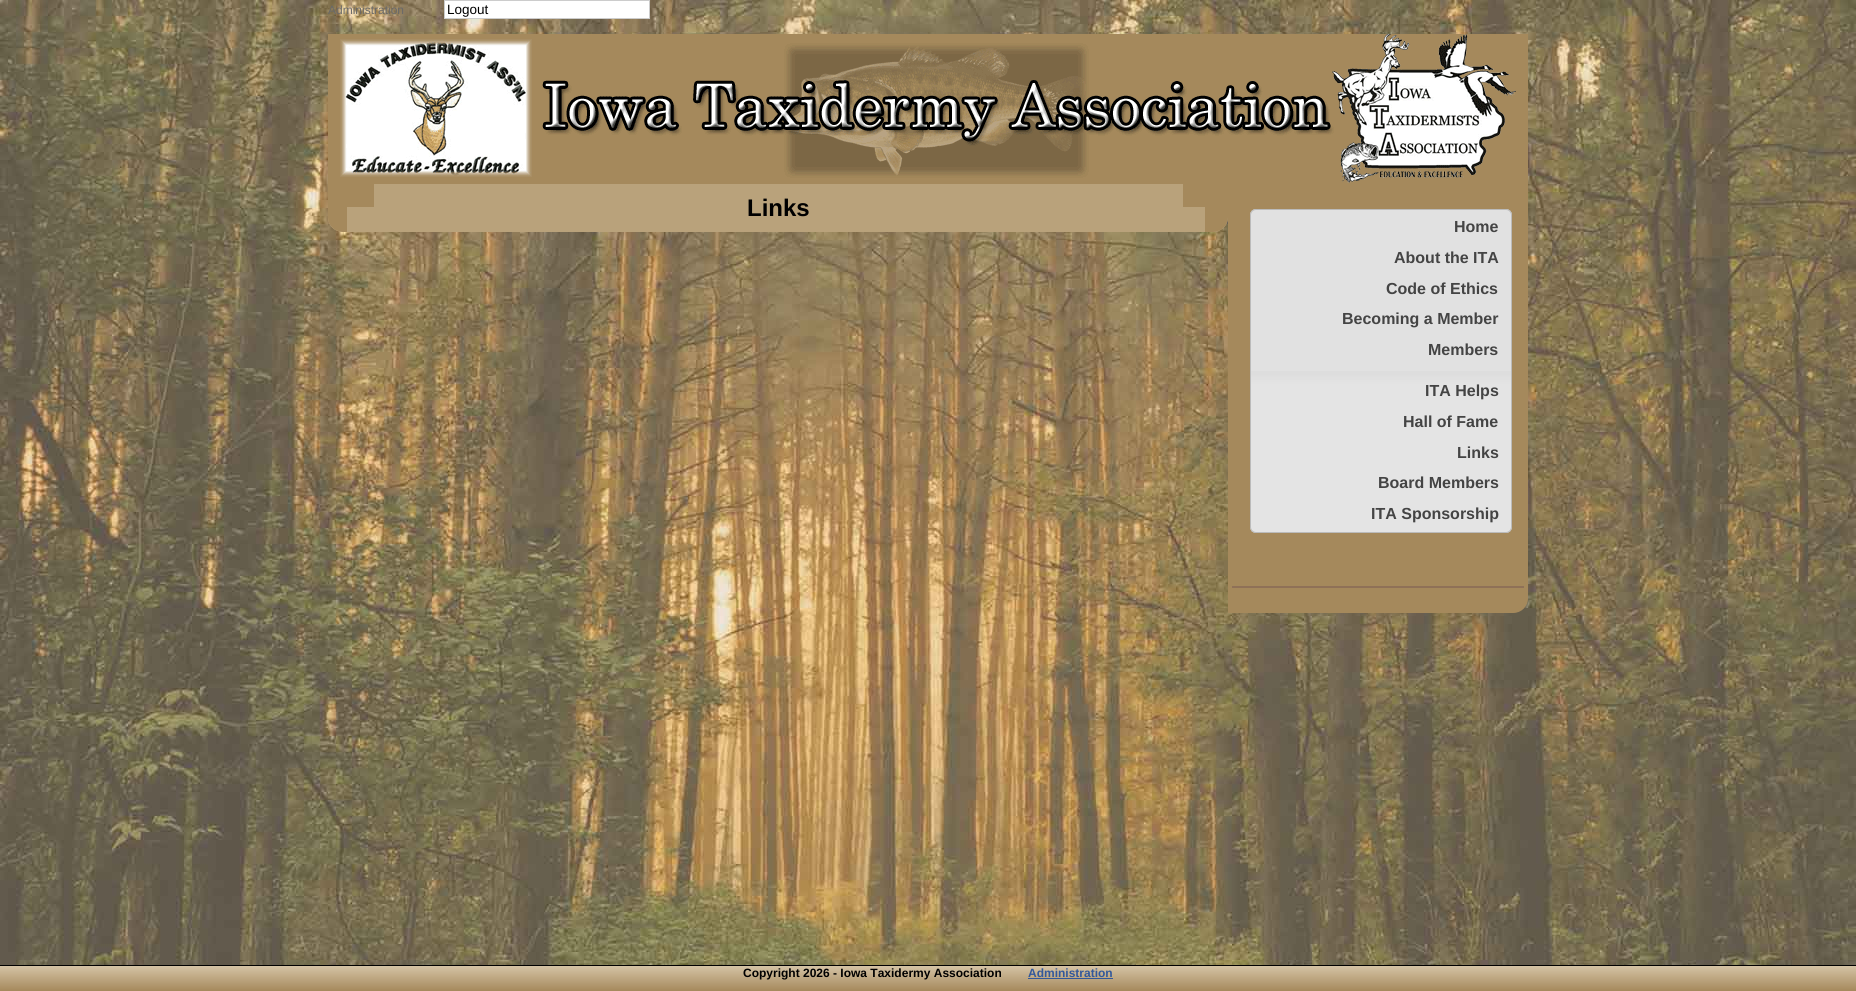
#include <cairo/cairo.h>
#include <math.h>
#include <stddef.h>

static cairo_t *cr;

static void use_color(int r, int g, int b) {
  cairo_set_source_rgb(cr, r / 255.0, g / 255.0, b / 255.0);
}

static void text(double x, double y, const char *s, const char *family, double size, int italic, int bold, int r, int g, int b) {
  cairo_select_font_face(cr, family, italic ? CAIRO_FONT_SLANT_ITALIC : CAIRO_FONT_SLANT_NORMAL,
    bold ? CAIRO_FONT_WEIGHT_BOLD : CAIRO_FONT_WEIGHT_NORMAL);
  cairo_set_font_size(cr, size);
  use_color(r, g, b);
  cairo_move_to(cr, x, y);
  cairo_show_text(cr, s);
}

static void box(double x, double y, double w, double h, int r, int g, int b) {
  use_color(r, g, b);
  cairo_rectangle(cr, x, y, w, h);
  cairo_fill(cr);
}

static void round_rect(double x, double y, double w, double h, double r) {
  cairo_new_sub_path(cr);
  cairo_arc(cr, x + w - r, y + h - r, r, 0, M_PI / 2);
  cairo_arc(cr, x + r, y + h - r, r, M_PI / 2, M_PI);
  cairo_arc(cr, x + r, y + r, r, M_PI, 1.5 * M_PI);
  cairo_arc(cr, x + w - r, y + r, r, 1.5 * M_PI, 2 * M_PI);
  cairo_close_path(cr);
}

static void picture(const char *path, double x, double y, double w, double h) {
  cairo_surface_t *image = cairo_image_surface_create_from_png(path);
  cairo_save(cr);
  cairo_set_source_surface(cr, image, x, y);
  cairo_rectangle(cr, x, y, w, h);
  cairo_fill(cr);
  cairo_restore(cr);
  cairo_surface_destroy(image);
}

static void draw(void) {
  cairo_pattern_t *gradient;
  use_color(255, 255, 255);
  cairo_paint(cr);
  picture("img_01.png", 0, 0, 1856, 965);
  use_color(255, 255, 255);
  cairo_rectangle(cr, 444.5, 0.5, 205, 18);
  cairo_fill_preserve(cr);
  use_color(204, 204, 204);
  cairo_set_line_width(cr, 1);
  cairo_stroke(cr);
  picture("img_02.png", 328, 34, 1200, 150);
  use_color(185, 162, 123);
  cairo_new_path(cr);
  cairo_move_to(cr, 328, 184);
  cairo_line_to(cr, 1228, 184);
  cairo_line_to(cr, 1228, 217);
  cairo_curve_to(cr, 1228, 225.5, 1221.5, 232, 1213, 232);
  cairo_line_to(cr, 343, 232);
  cairo_curve_to(cr, 334.5, 232, 328, 225.5, 328, 217);
  cairo_close_path(cr);
  cairo_fill(cr);
  picture("img_03.png", 328, 184, 900, 48);
  use_color(165, 137, 92);
  cairo_new_path(cr);
  cairo_move_to(cr, 1228, 184);
  cairo_line_to(cr, 1528, 184);
  cairo_line_to(cr, 1528, 598);
  cairo_curve_to(cr, 1528, 606.5, 1521.5, 613, 1513, 613);
  cairo_line_to(cr, 1228, 613);
  cairo_close_path(cr);
  cairo_fill(cr);
  picture("img_04.png", 1250, 209, 262, 324);
  round_rect(1250.5, 209.5, 261, 323, 5.5);
  use_color(187, 187, 187);
  cairo_stroke(cr);
  box(1232, 586, 292, 2, 143, 113, 87);
  gradient = cairo_pattern_create_linear(928, 966, 928, 991);
  cairo_pattern_add_color_stop_rgba(gradient, 0, 0.835, 0.765, 0.647, 1);
  cairo_pattern_add_color_stop_rgba(gradient, 1, 0.647, 0.537, 0.361, 1);
  cairo_set_source(cr, gradient);
  cairo_pattern_destroy(gradient);
  cairo_rectangle(cr, 0, 966, 1856, 25);
  cairo_fill(cr);
  box(0, 965, 1856, 1, 0, 0, 0);
  box(1028, 978, 85, 1, 50, 88, 155);
  text(328, 14, "Administration", "Liberation Sans", 12, 0, 0, 105, 105, 105);
  text(447, 14, "Logout", "Liberation Sans", 13.5, 0, 0, 0, 0, 0);
  text(747, 216, "Links", "Liberation Sans", 24, 0, 1, 0, 0, 0);
  text(1454, 232, "Home", "Liberation Sans", 16, 0, 1, 68, 68, 68);
  text(1394, 263, "About the ITA", "Liberation Sans", 16, 0, 1, 68, 68, 68);
  text(1386, 294, "Code of Ethics", "Liberation Sans", 16, 0, 1, 68, 68, 68);
  text(1342, 324, "Becoming a Member", "Liberation Sans", 16, 0, 1, 68, 68, 68);
  text(1428, 355, "Members", "Liberation Sans", 16, 0, 1, 68, 68, 68);
  text(1425, 396, "ITA Helps", "Liberation Sans", 16, 0, 1, 68, 68, 68);
  text(1403, 427, "Hall of Fame", "Liberation Sans", 16, 0, 1, 68, 68, 68);
  text(1457, 458, "Links", "Liberation Sans", 16, 0, 1, 68, 68, 68);
  text(1378, 488, "Board Members", "Liberation Sans", 16, 0, 1, 68, 68, 68);
  text(1371, 519, "ITA Sponsorship", "Liberation Sans", 16, 0, 1, 68, 68, 68);
  text(743, 977, "Copyright 2026 - Iowa Taxidermy Association", "Liberation Sans", 12, 0, 1, 0, 0, 0);
  text(1028, 977, "Administration", "Liberation Sans", 12, 0, 1, 50, 88, 155);
}

int main(void) {
  cairo_surface_t *surface = cairo_image_surface_create(CAIRO_FORMAT_RGB24, 1856, 991);
  cr = cairo_create(surface);
  cairo_font_options_t *options = cairo_font_options_create();
  cairo_font_options_set_hint_metrics(options, CAIRO_HINT_METRICS_OFF);
  cairo_font_options_set_hint_style(options, CAIRO_HINT_STYLE_NONE);
  cairo_set_font_options(cr, options);
  cairo_set_miter_limit(cr, 4);
  draw();
  cairo_surface_write_to_png(surface, "out.png");
  cairo_font_options_destroy(options);
  cairo_destroy(cr);
  cairo_surface_destroy(surface);
  return 0;
}
